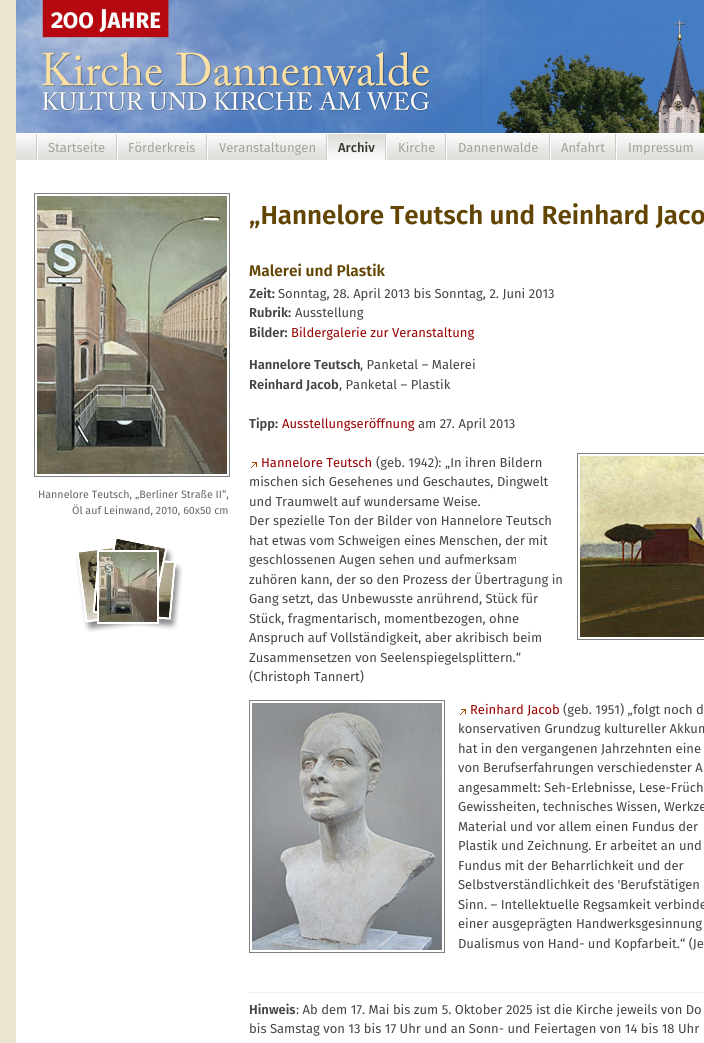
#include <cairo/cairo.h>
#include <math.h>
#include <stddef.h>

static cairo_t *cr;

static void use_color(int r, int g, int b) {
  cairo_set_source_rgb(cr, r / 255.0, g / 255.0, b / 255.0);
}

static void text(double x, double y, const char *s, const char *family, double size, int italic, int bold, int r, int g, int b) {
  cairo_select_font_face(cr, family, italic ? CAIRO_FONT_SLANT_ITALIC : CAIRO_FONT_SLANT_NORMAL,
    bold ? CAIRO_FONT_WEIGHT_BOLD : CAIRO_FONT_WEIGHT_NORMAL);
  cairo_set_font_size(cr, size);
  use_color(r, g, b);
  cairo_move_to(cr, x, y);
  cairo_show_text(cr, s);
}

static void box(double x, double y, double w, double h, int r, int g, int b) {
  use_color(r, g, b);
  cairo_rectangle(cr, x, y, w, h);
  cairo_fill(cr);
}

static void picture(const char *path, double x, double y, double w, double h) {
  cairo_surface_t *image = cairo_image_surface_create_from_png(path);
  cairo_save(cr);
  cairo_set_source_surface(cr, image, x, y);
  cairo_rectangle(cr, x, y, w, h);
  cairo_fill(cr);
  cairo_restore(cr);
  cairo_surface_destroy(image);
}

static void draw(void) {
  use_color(235, 230, 208);
  cairo_paint(cr);
  box(16, 160, 688, 883, 255, 255, 255);
  picture("img_01.png", 16, 0, 688, 133);
  picture("img_02.png", 16, 134, 20, 26);
  box(16, 133, 688, 1, 255, 255, 255);
  box(36, 134, 1, 26, 206, 204, 199);
  picture("img_03.png", 38, 134, 78, 26);
  box(116, 134, 1, 26, 206, 204, 199);
  box(37, 134, 1, 26, 253, 253, 253);
  picture("img_04.png", 118, 134, 88, 26);
  box(206, 134, 1, 26, 206, 204, 199);
  box(117, 134, 1, 26, 253, 253, 253);
  picture("img_05.png", 208, 134, 118, 26);
  box(326, 134, 1, 26, 206, 204, 199);
  box(207, 134, 1, 26, 253, 253, 253);
  picture("img_06.png", 328, 134, 57, 26);
  box(385, 134, 1, 26, 206, 204, 199);
  box(327, 134, 1, 26, 253, 253, 253);
  picture("img_07.png", 387, 134, 58, 26);
  box(445, 134, 1, 26, 206, 204, 199);
  box(386, 134, 1, 26, 253, 253, 253);
  picture("img_08.png", 447, 134, 102, 26);
  box(549, 134, 1, 26, 206, 204, 199);
  box(446, 134, 1, 26, 253, 253, 253);
  picture("img_09.png", 551, 134, 64, 26);
  box(615, 134, 1, 26, 206, 204, 199);
  box(550, 134, 1, 26, 253, 253, 253);
  picture("img_10.png", 617, 134, 87, 26);
  box(616, 134, 1, 26, 253, 253, 253);
  cairo_rectangle(cr, 34.5, 193.5, 195, 283);
  use_color(128, 128, 128);
  cairo_set_line_width(cr, 1);
  cairo_stroke(cr);
  picture("img_11.png", 37, 196, 190, 278);
  picture("img_12.png", 76, 538, 107, 94);
  cairo_rectangle(cr, 98, 551, 60, 72);
  use_color(255, 255, 255);
  cairo_set_line_width(cr, 2);
  cairo_stroke(cr);
  picture("img_13.png", 99, 552, 58, 70);
  picture("img_14.png", 251, 462, 6, 6);
  cairo_rectangle(cr, 577.5, 453.5, 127, 186);
  use_color(128, 128, 128);
  cairo_set_line_width(cr, 1);
  cairo_stroke(cr);
  picture("img_15.png", 580, 456, 124, 181);
  cairo_rectangle(cr, 249.5, 700.5, 195, 252);
  cairo_stroke(cr);
  picture("img_16.png", 252, 703, 190, 247);
  picture("img_14.png", 460, 709, 6, 6);
  box(249, 992, 455, 1, 238, 238, 238);
  text(48, 152, "Startseite", "Fira Sans", 13, 0, 0, 165, 162, 152);
  text(128, 152, "Förderkreis", "Fira Sans", 13, 0, 0, 165, 162, 152);
  text(219, 152, "Veranstaltungen", "Fira Sans", 13, 0, 0, 165, 162, 152);
  text(338, 152, "Archiv", "Fira Sans Medium", 13, 0, 0, 53, 52, 47);
  text(398, 152, "Kirche", "Fira Sans", 13, 0, 0, 165, 162, 152);
  text(458, 152, "Dannenwalde", "Fira Sans", 13, 0, 0, 165, 162, 152);
  text(561, 152, "Anfahrt", "Fira Sans", 13, 0, 0, 165, 162, 152);
  text(628, 152, "Impressum", "Fira Sans", 13, 0, 0, 165, 162, 152);
  text(38, 498, "Hannelore Teutsch, „Berliner Straße II“,", "Fira Sans", 10.7, 0, 0, 102, 102, 102);
  text(72, 514, "Öl auf Leinwand, 2010, 60x50 cm", "Fira Sans", 10.7, 0, 0, 102, 102, 102);
  text(249, 224, "„Hannelore Teutsch und Reinhard Jaco", "Fira Sans SemiBold", 26, 0, 0, 98, 69, 3);
  text(249, 276, "Malerei und Plastik", "Fira Sans SemiBold", 15.5, 0, 0, 98, 69, 3);
  text(249, 298, "Zeit:", "Fira Sans SemiBold", 13, 0, 0, 68, 68, 68);
  text(278, 298, "Sonntag, 28. April 2013 bis Sonntag, 2. Juni 2013", "Fira Sans", 13, 0, 0, 68, 68, 68);
  text(249, 317, "Rubrik:", "Fira Sans SemiBold", 13, 0, 0, 68, 68, 68);
  text(295, 317, "Ausstellung", "Fira Sans", 13, 0, 0, 68, 68, 68);
  text(249, 337, "Bilder:", "Fira Sans SemiBold", 13, 0, 0, 68, 68, 68);
  text(291, 337, "Bildergalerie zur Veranstaltung", "Fira Sans", 13, 0, 0, 153, 0, 0);
  text(249, 369, "Hannelore Teutsch", "Fira Sans SemiBold", 13, 0, 0, 68, 68, 68);
  text(360, 369, ", Panketal – Malerei", "Fira Sans", 13, 0, 0, 68, 68, 68);
  text(249, 389, "Reinhard Jacob", "Fira Sans SemiBold", 13, 0, 0, 68, 68, 68);
  text(339, 389, ", Panketal – Plastik", "Fira Sans", 13, 0, 0, 68, 68, 68);
  text(249, 428, "Tipp:", "Fira Sans SemiBold", 13, 0, 0, 68, 68, 68);
  text(282, 428, "Ausstellungseröffnung", "Fira Sans", 13, 0, 0, 153, 0, 0);
  text(418, 428, "am 27. April 2013", "Fira Sans", 13, 0, 0, 68, 68, 68);
  text(261, 467, "Hannelore Teutsch", "Fira Sans", 13, 0, 0, 153, 0, 0);
  text(376, 467, "(geb. 1942): „In ihren Bildern", "Fira Sans", 13, 0, 0, 68, 68, 68);
  text(249, 486, "mischen sich Gesehenes und Geschautes, Dingwelt", "Fira Sans", 13, 0, 0, 68, 68, 68);
  text(249, 506, "und Traumwelt auf wundersame Weise.", "Fira Sans", 13, 0, 0, 68, 68, 68);
  text(249, 525, "Der spezielle Ton der Bilder von Hannelore Teutsch", "Fira Sans", 13, 0, 0, 68, 68, 68);
  text(249, 545, "hat etwas vom Schweigen eines Menschen, der mit", "Fira Sans", 13, 0, 0, 68, 68, 68);
  text(249, 564, "geschlossenen Augen sehen und aufmerksam", "Fira Sans", 13, 0, 0, 68, 68, 68);
  text(249, 584, "zuhören kann, der so den Prozess der Übertragung in", "Fira Sans", 13, 0, 0, 68, 68, 68);
  text(249, 603, "Gang setzt, das Unbewusste anrührend, Stück für", "Fira Sans", 13, 0, 0, 68, 68, 68);
  text(249, 623, "Stück, fragmentarisch, momentbezogen, ohne", "Fira Sans", 13, 0, 0, 68, 68, 68);
  text(249, 642, "Anspruch auf Vollständigkeit, aber akribisch beim", "Fira Sans", 13, 0, 0, 68, 68, 68);
  text(249, 662, "Zusammensetzen von Seelenspiegelsplittern.“", "Fira Sans", 13, 0, 0, 68, 68, 68);
  text(249, 681, "(Christoph Tannert)", "Fira Sans", 13, 0, 0, 68, 68, 68);
  text(470, 714, "Reinhard Jacob", "Fira Sans", 13, 0, 0, 153, 0, 0);
  text(563, 714, "(geb. 1951) „folgt noch d", "Fira Sans", 13, 0, 0, 68, 68, 68);
  text(458, 733, "konservativen Grundzug kultureller Akkum", "Fira Sans", 13, 0, 0, 68, 68, 68);
  text(458, 753, "hat in den vergangenen Jahrzehnten eine", "Fira Sans", 13, 0, 0, 68, 68, 68);
  text(458, 772, "von Berufserfahrungen verschiedenster A", "Fira Sans", 13, 0, 0, 68, 68, 68);
  text(458, 792, "angesammelt: Seh-Erlebnisse, Lese-Früch", "Fira Sans", 13, 0, 0, 68, 68, 68);
  text(458, 811, "Gewissheiten, technisches Wissen, Werkze", "Fira Sans", 13, 0, 0, 68, 68, 68);
  text(458, 831, "Material und vor allem einen Fundus der", "Fira Sans", 13, 0, 0, 68, 68, 68);
  text(458, 850, "Plastik und Zeichnung. Er arbeitet an und", "Fira Sans", 13, 0, 0, 68, 68, 68);
  text(458, 870, "Fundus mit der Beharrlichkeit und der", "Fira Sans", 13, 0, 0, 68, 68, 68);
  text(458, 889, "Selbstverständlichkeit des 'Berufstätigen", "Fira Sans", 13, 0, 0, 68, 68, 68);
  text(458, 909, "Sinn. – Intellektuelle Regsamkeit verbinde", "Fira Sans", 13, 0, 0, 68, 68, 68);
  text(458, 928, "einer ausgeprägten Handwerksgesinnung", "Fira Sans", 13, 0, 0, 68, 68, 68);
  text(458, 948, "Dualismus von Hand- und Kopfarbeit.“ (Je", "Fira Sans", 13, 0, 0, 68, 68, 68);
  text(249, 1014, "Hinweis", "Fira Sans SemiBold", 13, 0, 0, 68, 68, 68);
  text(296, 1014, ": Ab dem 17. Mai bis zum 5. Oktober 2025 ist die Kirche jeweils von Do", "Fira Sans", 13, 0, 0, 68, 68, 68);
  text(249, 1033, "bis Samstag von 13 bis 17 Uhr und an Sonn- und Feiertagen von 14 bis 18 Uhr", "Fira Sans", 13, 0, 0, 68, 68, 68);
}

int main(void) {
  cairo_surface_t *surface = cairo_image_surface_create(CAIRO_FORMAT_RGB24, 704, 1043);
  cr = cairo_create(surface);
  cairo_font_options_t *options = cairo_font_options_create();
  cairo_font_options_set_hint_metrics(options, CAIRO_HINT_METRICS_OFF);
  cairo_font_options_set_hint_style(options, CAIRO_HINT_STYLE_NONE);
  cairo_set_font_options(cr, options);
  cairo_set_miter_limit(cr, 4);
  draw();
  cairo_surface_write_to_png(surface, "out.png");
  cairo_font_options_destroy(options);
  cairo_destroy(cr);
  cairo_surface_destroy(surface);
  return 0;
}
